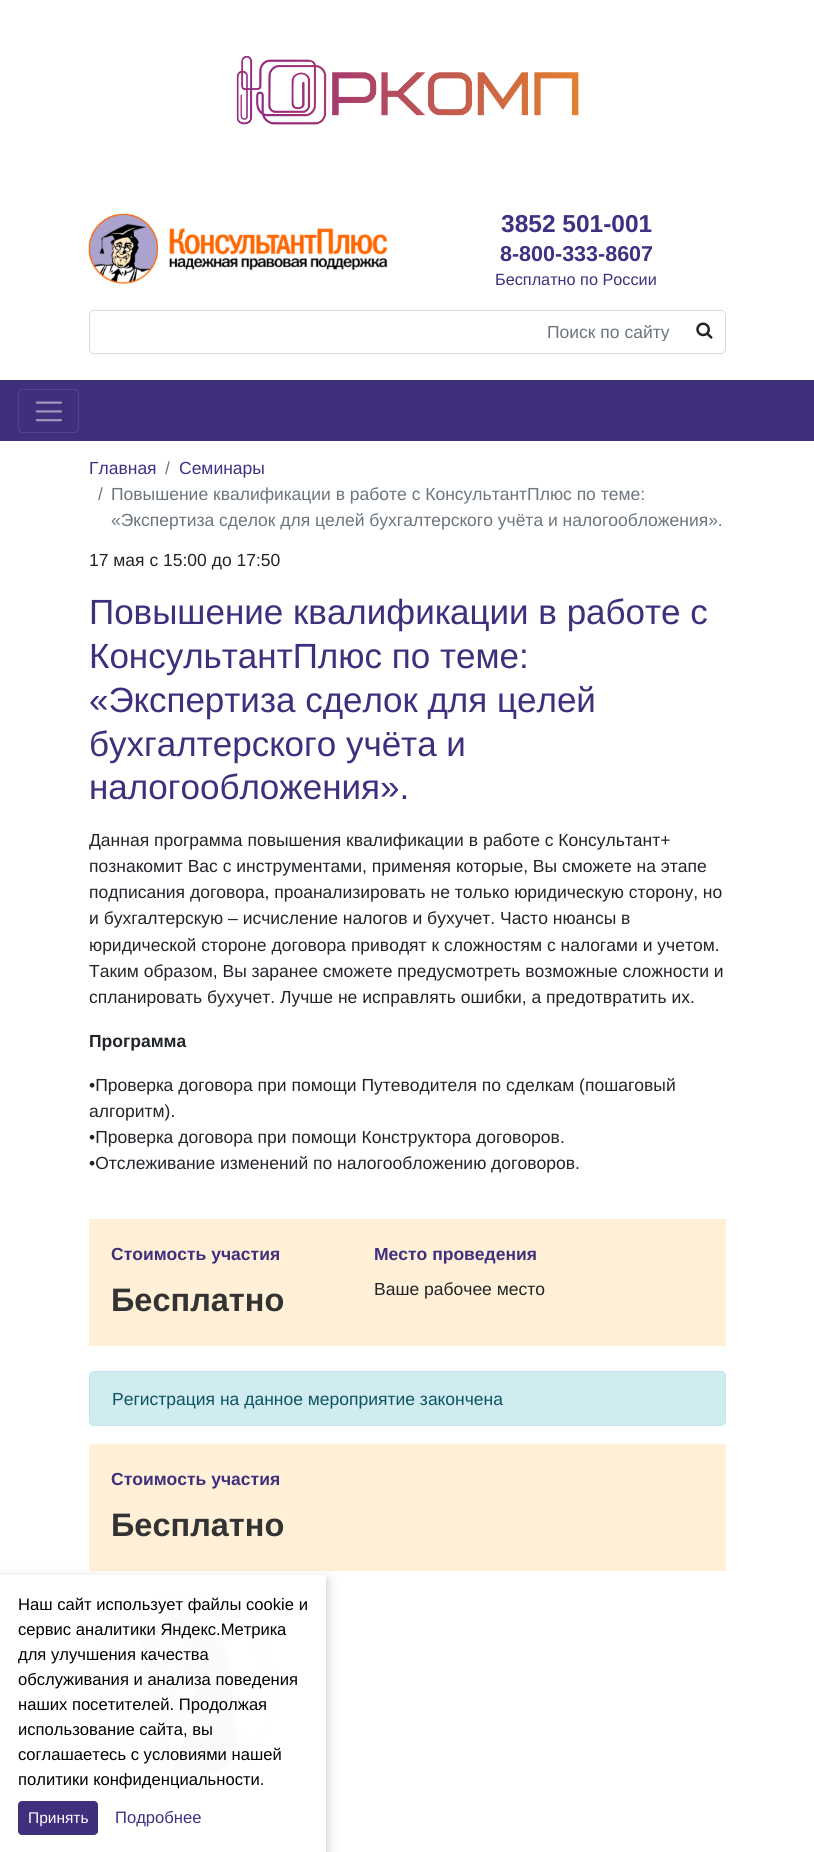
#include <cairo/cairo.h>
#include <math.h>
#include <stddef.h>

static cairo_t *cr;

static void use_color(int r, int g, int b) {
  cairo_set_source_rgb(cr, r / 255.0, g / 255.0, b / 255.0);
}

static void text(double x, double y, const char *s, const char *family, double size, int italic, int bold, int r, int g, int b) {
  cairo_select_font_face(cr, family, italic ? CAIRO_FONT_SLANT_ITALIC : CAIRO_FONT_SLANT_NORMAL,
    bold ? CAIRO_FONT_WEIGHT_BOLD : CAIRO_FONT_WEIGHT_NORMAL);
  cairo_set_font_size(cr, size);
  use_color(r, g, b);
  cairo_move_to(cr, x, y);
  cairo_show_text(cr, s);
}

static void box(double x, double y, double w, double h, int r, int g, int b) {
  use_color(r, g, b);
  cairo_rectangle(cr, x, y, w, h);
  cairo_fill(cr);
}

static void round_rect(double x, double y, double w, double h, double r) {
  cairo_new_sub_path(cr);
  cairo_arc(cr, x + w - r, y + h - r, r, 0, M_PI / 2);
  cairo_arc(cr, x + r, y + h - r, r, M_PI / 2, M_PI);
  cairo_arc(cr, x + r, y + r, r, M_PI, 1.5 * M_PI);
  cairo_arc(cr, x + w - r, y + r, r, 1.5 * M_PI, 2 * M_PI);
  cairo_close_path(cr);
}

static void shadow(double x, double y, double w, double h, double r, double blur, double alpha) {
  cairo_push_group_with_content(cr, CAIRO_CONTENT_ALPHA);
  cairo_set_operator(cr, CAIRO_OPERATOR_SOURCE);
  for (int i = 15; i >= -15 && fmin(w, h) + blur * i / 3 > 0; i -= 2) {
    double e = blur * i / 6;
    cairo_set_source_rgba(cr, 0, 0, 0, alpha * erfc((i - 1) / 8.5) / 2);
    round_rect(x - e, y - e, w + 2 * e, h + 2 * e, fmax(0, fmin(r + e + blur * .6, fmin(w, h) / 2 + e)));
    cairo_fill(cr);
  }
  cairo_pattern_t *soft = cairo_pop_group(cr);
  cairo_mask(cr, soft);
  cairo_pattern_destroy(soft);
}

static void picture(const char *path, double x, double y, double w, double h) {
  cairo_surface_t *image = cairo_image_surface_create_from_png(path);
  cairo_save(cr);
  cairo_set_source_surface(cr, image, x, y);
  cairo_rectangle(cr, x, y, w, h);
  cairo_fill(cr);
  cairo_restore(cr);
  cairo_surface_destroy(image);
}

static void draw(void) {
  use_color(255, 255, 255);
  cairo_paint(cr);
  picture("img_01.png", 236, 56, 343, 69);
  picture("img_02.png", 88, 213, 300, 71);
  round_rect(89.5, 310.5, 636, 43, 4.5);
  use_color(217, 217, 217);
  cairo_set_line_width(cr, 1);
  cairo_stroke(cr);
  use_color(255, 255, 255);
  cairo_new_path(cr);
  cairo_move_to(cr, 95, 311);
  cairo_line_to(cr, 683, 311);
  cairo_line_to(cr, 683, 353);
  cairo_line_to(cr, 95, 353);
  cairo_curve_to(cr, 92, 353, 90, 351, 90, 348);
  cairo_line_to(cr, 90, 316);
  cairo_curve_to(cr, 90, 313, 92, 311, 95, 311);
  cairo_close_path(cr);
  cairo_fill(cr);
  round_rect(683, 311, 42, 39, 5);
  cairo_fill(cr);
  picture("img_03.png", 696, 322, 17, 17);
  box(0, 380, 814, 61, 64, 47, 125);
  round_rect(18.5, 389.5, 60, 43, 4.5);
  use_color(83, 68, 138);
  cairo_stroke(cr);
  picture("img_04.png", 35, 401, 27, 21);
  box(89, 1219, 637, 127, 255, 240, 215);
  use_color(209, 236, 241);
  round_rect(89.5, 1371.5, 636, 54, 4.5);
  cairo_fill_preserve(cr);
  use_color(190, 229, 235);
  cairo_stroke(cr);
  box(89, 1444, 637, 127, 255, 240, 215);
  round_rect(89.5, 1596.5, 186, 187, 93);
  use_color(222, 226, 230);
  cairo_stroke(cr);
  picture("img_05.png", 94, 1602, 177, 177);
  cairo_save(cr);
  cairo_set_fill_rule(cr, CAIRO_FILL_RULE_EVEN_ODD);
  cairo_new_path(cr);
  cairo_move_to(cr, 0, 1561);
  cairo_line_to(cr, 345, 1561);
  cairo_line_to(cr, 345, 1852);
  cairo_line_to(cr, 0, 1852);
  cairo_close_path(cr);
  cairo_move_to(cr, 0, 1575);
  cairo_line_to(cr, 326, 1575);
  cairo_line_to(cr, 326, 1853);
  cairo_line_to(cr, 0, 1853);
  cairo_close_path(cr);
  cairo_clip(cr);
  use_color(0, 0, 0);
  shadow(0, 1580, 326, 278, 0, 6, 0.25);
  cairo_restore(cr);
  cairo_set_source_rgba(cr, 1, 1, 1, 0.97);
  cairo_rectangle(cr, 89, 1596, 187, 188);
  cairo_fill(cr);
  use_color(64, 47, 125);
  round_rect(18.5, 1801.5, 79, 33, 3.5);
  cairo_fill_preserve(cr);
  cairo_stroke(cr);
  text(501, 232, "3852 501-001", "Liberation Sans", 24.5, 0, 1, 63, 48, 131);
  text(500, 261, "8-800-333-8607", "Liberation Sans", 21.5, 0, 1, 63, 48, 131);
  text(495, 285, "Бесплатно по России", "Liberation Sans", 16.25, 0, 0, 64, 47, 125);
  cairo_save(cr);
  cairo_rectangle(cr, 104, 321, 566, 20);
  cairo_clip(cr);
  text(547, 338, "Поиск по сайту", "Liberation Sans", 17.5, 0, 0, 108, 117, 125);
  cairo_restore(cr);
  text(89, 474, "Главная", "Liberation Sans", 17.5, 0, 0, 63, 48, 131);
  text(165, 474, "/", "Liberation Sans", 17.5, 0, 0, 108, 117, 125);
  text(179, 474, "Семинары", "Liberation Sans", 17.5, 0, 0, 63, 48, 131);
  text(98, 500, "/", "Liberation Sans", 17.5, 0, 0, 108, 117, 125);
  text(111, 500, "Повышение квалификации в работе с КонсультантПлюс по теме:", "Liberation Sans", 17.5, 0, 0, 108, 117, 125);
  text(111, 526, "«Экспертиза сделок для целей бухгалтерского учёта и налогообложения».", "Liberation Sans", 17.5, 0, 0, 108, 117, 125);
  text(89, 566, "17 мая c 15:00 до 17:50", "Liberation Sans", 17.5, 0, 0, 33, 37, 41);
  text(89, 624, "Повышение квалификации в работе с", "Liberation Sans", 35, 0, 0, 64, 47, 125);
  text(89, 668, "КонсультантПлюс по теме:", "Liberation Sans", 35, 0, 0, 64, 47, 125);
  text(89, 712, "«Экспертиза сделок для целей", "Liberation Sans", 35, 0, 0, 64, 47, 125);
  text(89, 756, "бухгалтерского учёта и", "Liberation Sans", 35, 0, 0, 64, 47, 125);
  text(89, 799, "налогообложения».", "Liberation Sans", 35, 0, 0, 64, 47, 125);
  text(89, 846, "Данная программа повышения квалификации в работе с Консультант+", "Liberation Sans", 17.5, 0, 0, 33, 37, 41);
  text(89, 872, "познакомит Вас с инструментами, применяя которые, Вы сможете на этапе", "Liberation Sans", 17.5, 0, 0, 33, 37, 41);
  text(89, 898, "подписания договора, проанализировать не только юридическую сторону, но", "Liberation Sans", 17.5, 0, 0, 33, 37, 41);
  text(89, 924, "и бухгалтерскую – исчисление налогов и бухучет. Часто нюансы в", "Liberation Sans", 17.5, 0, 0, 33, 37, 41);
  text(89, 951, "юридической стороне договора приводят к сложностям с налогами и учетом.", "Liberation Sans", 17.5, 0, 0, 33, 37, 41);
  text(89, 977, "Таким образом, Вы заранее сможете предусмотреть возможные сложности и", "Liberation Sans", 17.5, 0, 0, 33, 37, 41);
  text(89, 1003, "спланировать бухучет. Лучше не исправлять ошибки, а предотвратить их.", "Liberation Sans", 17.5, 0, 0, 33, 37, 41);
  text(89, 1047, "Программа", "Liberation Sans", 17.5, 0, 1, 33, 37, 41);
  text(89, 1091, "•Проверка договора при помощи Путеводителя по сделкам (пошаговый", "Liberation Sans", 17.5, 0, 0, 33, 37, 41);
  text(89, 1117, "алгоритм).", "Liberation Sans", 17.5, 0, 0, 33, 37, 41);
  text(89, 1143, "•Проверка договора при помощи Конструктора договоров.", "Liberation Sans", 17.5, 0, 0, 33, 37, 41);
  text(89, 1169, "•Отслеживание изменений по налогообложению договоров.", "Liberation Sans", 17.5, 0, 0, 33, 37, 41);
  text(111, 1260, "Стоимость участия", "Liberation Sans", 17.5, 0, 1, 64, 47, 125);
  text(111, 1311, "Бесплатно", "Liberation Sans", 32.5, 0, 1, 51, 51, 51);
  text(374, 1260, "Место проведения", "Liberation Sans", 17.5, 0, 1, 64, 47, 125);
  text(374, 1295, "Ваше рабочее место", "Liberation Sans", 17.5, 0, 0, 33, 37, 41);
  text(112, 1405, "Регистрация на данное мероприятие закончена", "Liberation Sans", 17.5, 0, 0, 12, 84, 96);
  text(111, 1485, "Стоимость участия", "Liberation Sans", 17.5, 0, 1, 64, 47, 125);
  text(111, 1536, "Бесплатно", "Liberation Sans", 32.5, 0, 1, 51, 51, 51);
  text(18, 1610, "Наш сайт использует файлы cookie и", "Liberation Sans", 16.6, 0, 0, 0, 0, 0);
  text(18, 1635, "сервис аналитики Яндекс.Метрика", "Liberation Sans", 16.6, 0, 0, 0, 0, 0);
  text(18, 1660, "для улучшения качества", "Liberation Sans", 16.6, 0, 0, 0, 0, 0);
  text(18, 1685, "обслуживания и анализа поведения", "Liberation Sans", 16.6, 0, 0, 0, 0, 0);
  text(18, 1710, "наших посетителей. Продолжая", "Liberation Sans", 16.6, 0, 0, 0, 0, 0);
  text(18, 1735, "использование сайта, вы", "Liberation Sans", 16.6, 0, 0, 0, 0, 0);
  text(18, 1760, "соглашаетесь с условиями нашей", "Liberation Sans", 16.6, 0, 0, 0, 0, 0);
  text(18, 1785, "политики конфиденциальности.", "Liberation Sans", 16.6, 0, 0, 0, 0, 0);
  text(28, 1823, "Принять", "Liberation Sans", 15.5, 0, 0, 255, 255, 255);
  text(115, 1823, "Подробнее", "Liberation Sans", 16.6, 0, 0, 63, 48, 131);
}

int main(void) {
  cairo_surface_t *surface = cairo_image_surface_create(CAIRO_FORMAT_RGB24, 814, 1852);
  cr = cairo_create(surface);
  cairo_font_options_t *options = cairo_font_options_create();
  cairo_font_options_set_hint_metrics(options, CAIRO_HINT_METRICS_OFF);
  cairo_font_options_set_hint_style(options, CAIRO_HINT_STYLE_NONE);
  cairo_set_font_options(cr, options);
  cairo_set_miter_limit(cr, 4);
  draw();
  cairo_surface_write_to_png(surface, "out.png");
  cairo_font_options_destroy(options);
  cairo_destroy(cr);
  cairo_surface_destroy(surface);
  return 0;
}
